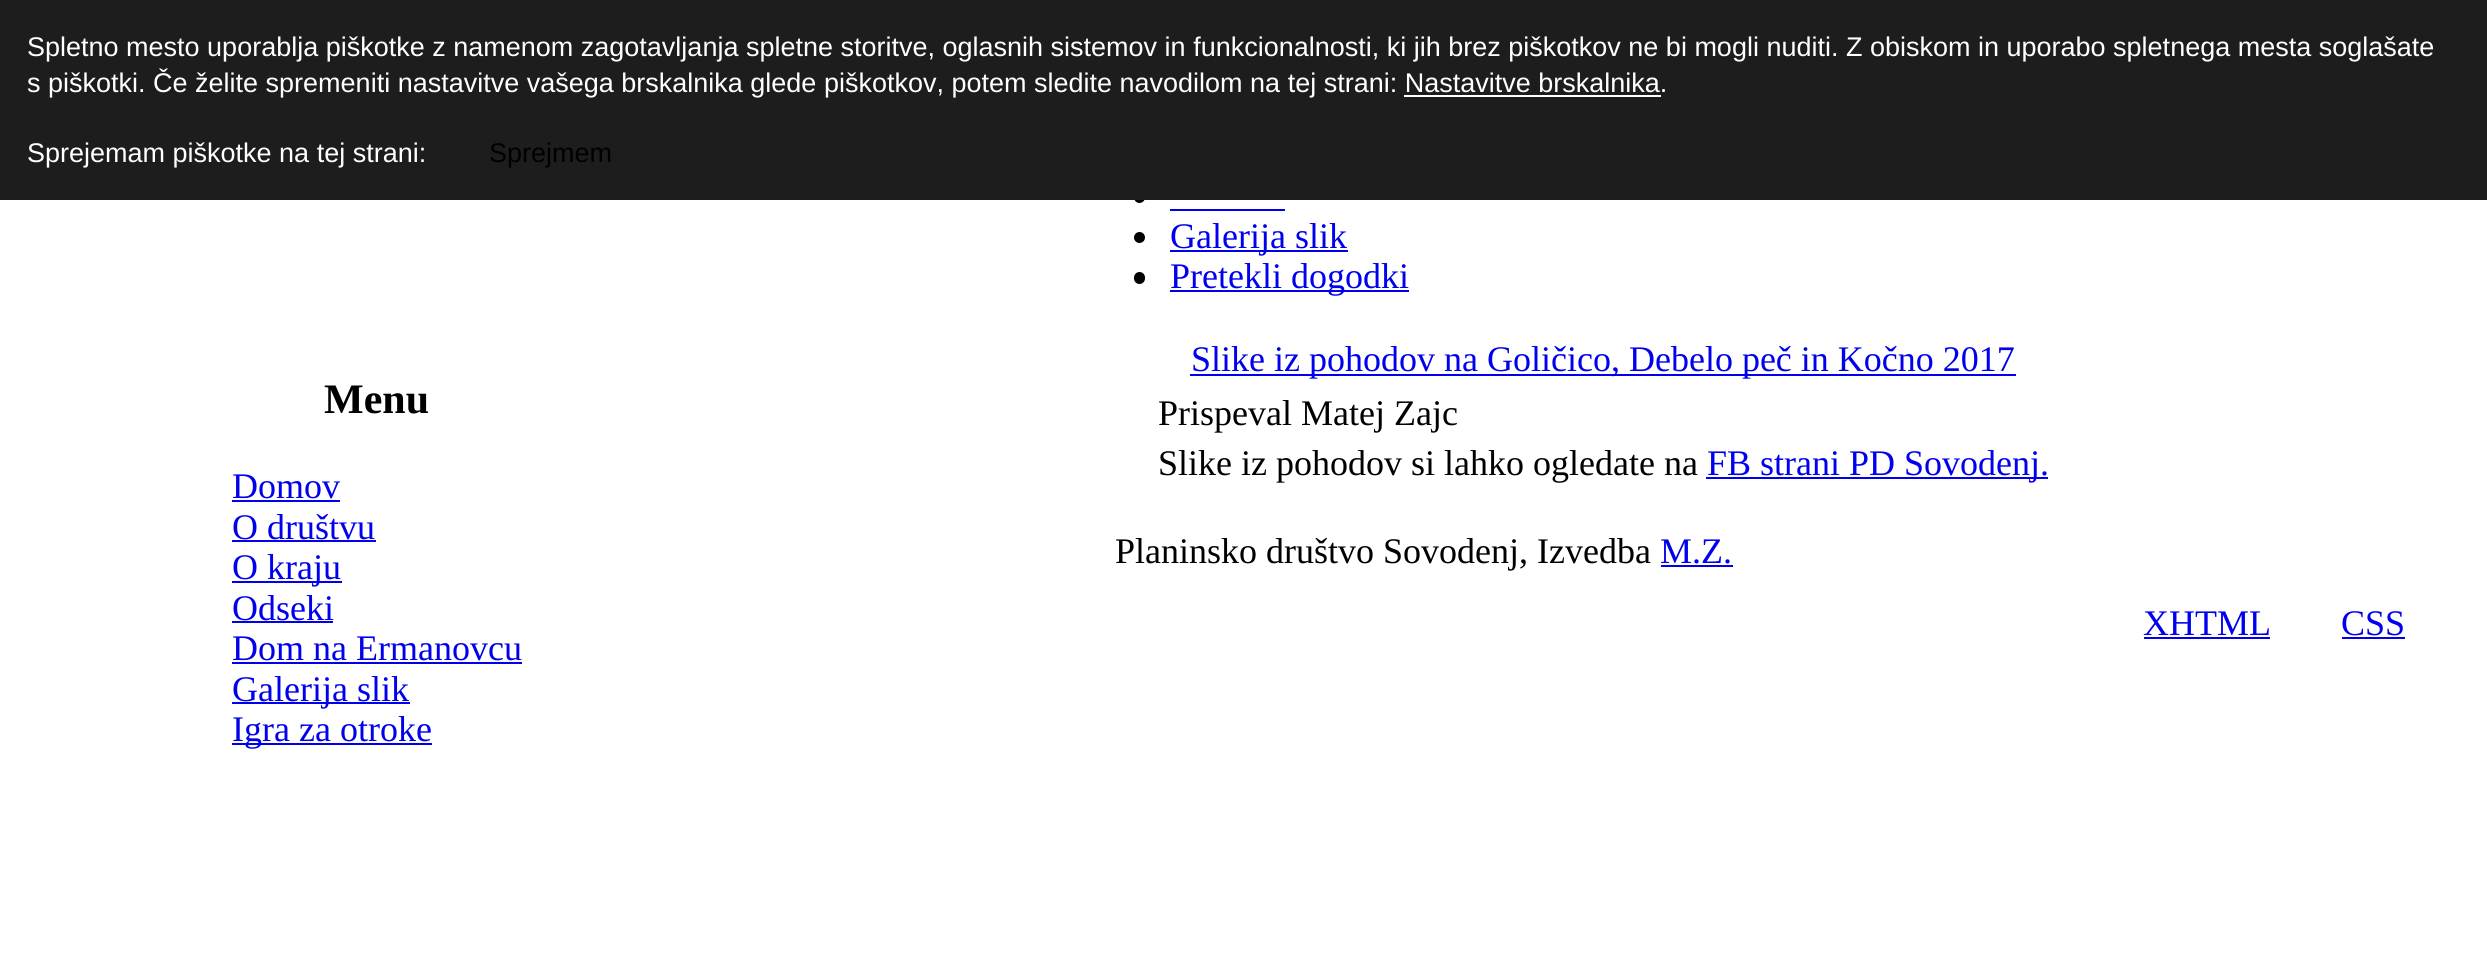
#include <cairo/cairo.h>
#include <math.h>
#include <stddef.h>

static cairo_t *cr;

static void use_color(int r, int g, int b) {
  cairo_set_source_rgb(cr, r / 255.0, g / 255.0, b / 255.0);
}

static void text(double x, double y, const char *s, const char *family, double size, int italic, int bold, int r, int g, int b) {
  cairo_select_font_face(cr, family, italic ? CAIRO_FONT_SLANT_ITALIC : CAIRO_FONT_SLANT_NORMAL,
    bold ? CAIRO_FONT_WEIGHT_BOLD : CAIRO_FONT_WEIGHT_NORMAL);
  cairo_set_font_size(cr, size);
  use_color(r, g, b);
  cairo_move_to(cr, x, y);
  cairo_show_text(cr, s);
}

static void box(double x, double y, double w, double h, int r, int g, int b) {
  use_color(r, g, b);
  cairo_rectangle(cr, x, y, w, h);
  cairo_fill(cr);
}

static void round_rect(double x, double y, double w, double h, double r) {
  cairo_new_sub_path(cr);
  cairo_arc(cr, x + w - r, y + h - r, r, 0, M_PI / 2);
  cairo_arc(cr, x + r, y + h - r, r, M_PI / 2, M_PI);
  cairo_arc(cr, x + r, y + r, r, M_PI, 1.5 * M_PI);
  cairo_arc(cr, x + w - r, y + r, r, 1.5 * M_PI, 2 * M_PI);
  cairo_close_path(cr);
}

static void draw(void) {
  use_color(255, 255, 255);
  cairo_paint(cr);
  use_color(0, 0, 0);
  round_rect(1134, 191, 11, 12, 5.5);
  cairo_fill(cr);
  box(0, 0, 2487, 200, 29, 29, 29);
  box(1404, 95, 257, 2, 255, 255, 255);
  box(1170, 209, 115, 2, 0, 0, 238);
  use_color(0, 0, 0);
  cairo_arc(cr, 1139.5, 237.5, 5.5, 0, 2 * M_PI);
  cairo_fill(cr);
  box(1170, 250, 178, 2, 0, 0, 238);
  use_color(0, 0, 0);
  round_rect(1134, 272, 11, 12, 5.5);
  cairo_fill(cr);
  box(1170, 290, 239, 2, 0, 0, 238);
  box(232, 500, 108, 2, 0, 0, 238);
  box(232, 540, 144, 2, 0, 0, 238);
  box(232, 581, 110, 2, 0, 0, 238);
  box(232, 621, 101, 2, 0, 0, 238);
  box(232, 662, 290, 2, 0, 0, 238);
  box(232, 702, 178, 2, 0, 0, 238);
  box(232, 743, 200, 2, 0, 0, 238);
  box(1190, 374, 826, 2, 0, 0, 238);
  box(1706, 477, 342, 2, 0, 0, 238);
  box(2144, 637, 126, 2, 0, 0, 238);
  box(2342, 637, 63, 2, 0, 0, 238);
  box(1661, 565, 72, 2, 0, 0, 238);
  text(27, 56, "Spletno mesto uporablja piškotke z namenom zagotavljanja spletne storitve, oglasnih sistemov in funkcionalnosti, ki jih brez piškotkov ne bi mogli nuditi. Z obiskom in uporabo spletnega mesta soglašate", "Liberation Sans", 27, 0, 0, 255, 255, 255);
  text(27, 92, "s piškotki. Če želite spremeniti nastavitve vašega brskalnika glede piškotkov, potem sledite navodilom na tej strani: Nastavitve brskalnika.", "Liberation Sans", 27, 0, 0, 255, 255, 255);
  text(27, 162, "Sprejemam piškotke na tej strani:", "Liberation Sans", 27, 0, 0, 255, 255, 255);
  text(489, 162, "Sprejmem", "Liberation Sans", 27, 0, 0, 0, 0, 0);
  text(1170, 248, "Galerija slik", "Liberation Serif", 36, 0, 0, 0, 0, 238);
  text(1170, 288, "Pretekli dogodki", "Liberation Serif", 36, 0, 0, 0, 0, 238);
  text(324, 413, "Menu", "Liberation Serif", 42, 0, 1, 0, 0, 0);
  text(232, 498, "Domov", "Liberation Serif", 36, 0, 0, 0, 0, 238);
  text(232, 539, "O društvu", "Liberation Serif", 36, 0, 0, 0, 0, 238);
  text(232, 579, "O kraju", "Liberation Serif", 36, 0, 0, 0, 0, 238);
  text(232, 620, "Odseki", "Liberation Serif", 36, 0, 0, 0, 0, 238);
  text(232, 660, "Dom na Ermanovcu", "Liberation Serif", 36, 0, 0, 0, 0, 238);
  text(232, 701, "Galerija slik", "Liberation Serif", 36, 0, 0, 0, 0, 238);
  text(232, 741, "Igra za otroke", "Liberation Serif", 36, 0, 0, 0, 0, 238);
  text(1191, 371, "Slike iz pohodov na Goličico, Debelo peč in Kočno 2017", "Liberation Serif", 36, 0, 0, 0, 0, 238);
  text(1158, 425, "Prispeval Matej Zajc", "Liberation Serif", 36, 0, 0, 0, 0, 0);
  text(1158, 475, "Slike iz pohodov si lahko ogledate na", "Liberation Serif", 36, 0, 0, 0, 0, 0);
  text(1707, 475, "FB strani PD Sovodenj.", "Liberation Serif", 36, 0, 0, 0, 0, 238);
  text(2143, 635, "XHTML", "Liberation Serif", 36, 0, 0, 0, 0, 238);
  text(2341, 635, "CSS", "Liberation Serif", 36, 0, 0, 0, 0, 238);
  text(1115, 563, "Planinsko društvo Sovodenj, Izvedba", "Liberation Serif", 36, 0, 0, 0, 0, 0);
  text(1660, 563, "M.Z.", "Liberation Serif", 36, 0, 0, 0, 0, 238);
}

int main(void) {
  cairo_surface_t *surface = cairo_image_surface_create(CAIRO_FORMAT_RGB24, 2487, 959);
  cr = cairo_create(surface);
  cairo_font_options_t *options = cairo_font_options_create();
  cairo_font_options_set_hint_metrics(options, CAIRO_HINT_METRICS_OFF);
  cairo_font_options_set_hint_style(options, CAIRO_HINT_STYLE_NONE);
  cairo_set_font_options(cr, options);
  cairo_set_miter_limit(cr, 4);
  draw();
  cairo_surface_write_to_png(surface, "out.png");
  cairo_font_options_destroy(options);
  cairo_destroy(cr);
  cairo_surface_destroy(surface);
  return 0;
}
